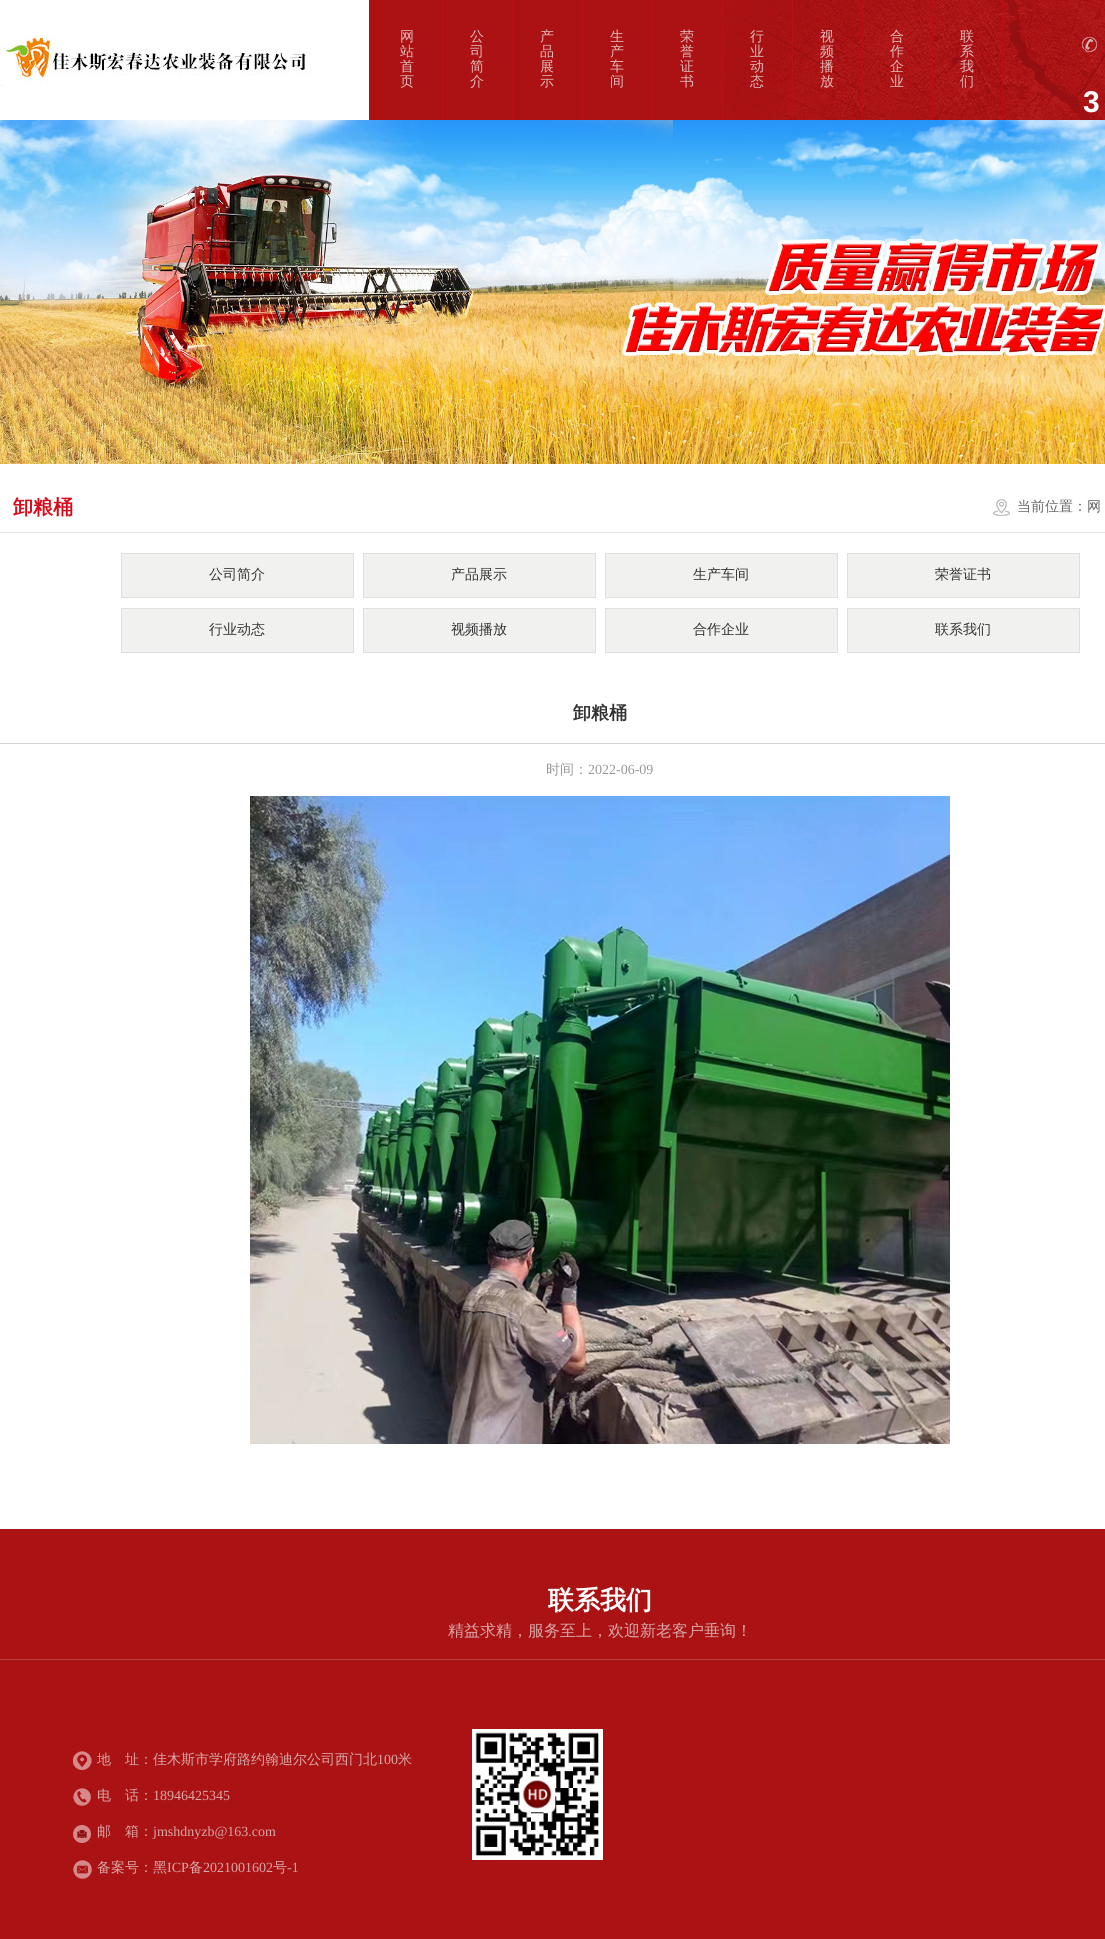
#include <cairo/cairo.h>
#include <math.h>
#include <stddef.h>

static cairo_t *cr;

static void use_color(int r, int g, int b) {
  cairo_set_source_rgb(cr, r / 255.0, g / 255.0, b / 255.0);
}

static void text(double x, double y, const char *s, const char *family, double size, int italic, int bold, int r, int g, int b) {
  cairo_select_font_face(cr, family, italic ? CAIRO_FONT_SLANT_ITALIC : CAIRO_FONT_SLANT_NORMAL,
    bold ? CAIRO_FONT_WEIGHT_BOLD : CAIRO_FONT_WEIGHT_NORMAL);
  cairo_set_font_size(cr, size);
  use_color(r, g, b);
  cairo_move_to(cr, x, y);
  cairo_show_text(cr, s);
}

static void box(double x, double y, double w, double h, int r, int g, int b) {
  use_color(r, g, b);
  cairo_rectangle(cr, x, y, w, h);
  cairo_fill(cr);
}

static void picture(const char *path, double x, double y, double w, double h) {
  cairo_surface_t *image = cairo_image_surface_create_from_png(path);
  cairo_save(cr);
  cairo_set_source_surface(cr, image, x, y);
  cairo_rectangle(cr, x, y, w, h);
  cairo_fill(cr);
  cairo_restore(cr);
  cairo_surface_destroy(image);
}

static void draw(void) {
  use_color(255, 255, 255);
  cairo_paint(cr);
  picture("img_01.png", 0, 0, 1105, 120);
  picture("img_02.png", 0, 36, 312, 50);
  box(442, 0, 1, 120, 186, 15, 22);
  box(512, 0, 1, 120, 186, 15, 22);
  box(582, 0, 1, 120, 186, 15, 22);
  box(652, 0, 1, 120, 186, 15, 22);
  box(722, 0, 1, 120, 186, 15, 22);
  box(792, 0, 1, 120, 186, 15, 22);
  box(862, 0, 1, 120, 186, 15, 22);
  box(932, 0, 1, 120, 186, 15, 22);
  box(1002, 0, 1, 120, 186, 15, 22);
  picture("img_03.png", 1082, 37, 15, 15);
  picture("img_04.png", 0, 120, 1105, 344);
  box(0, 532, 1105, 1, 228, 229, 226);
  picture("img_05.png", 993, 499, 17, 17);
  use_color(241, 242, 240);
  cairo_rectangle(cr, 121.5, 553.5, 232, 44);
  cairo_fill_preserve(cr);
  use_color(224, 222, 222);
  cairo_set_line_width(cr, 1);
  cairo_stroke(cr);
  use_color(241, 242, 240);
  cairo_rectangle(cr, 363.5, 553.5, 232, 44);
  cairo_fill_preserve(cr);
  use_color(224, 222, 222);
  cairo_stroke(cr);
  use_color(241, 242, 240);
  cairo_rectangle(cr, 605.5, 553.5, 232, 44);
  cairo_fill_preserve(cr);
  use_color(224, 222, 222);
  cairo_stroke(cr);
  use_color(241, 242, 240);
  cairo_rectangle(cr, 847.5, 553.5, 232, 44);
  cairo_fill_preserve(cr);
  use_color(224, 222, 222);
  cairo_stroke(cr);
  use_color(241, 242, 240);
  cairo_rectangle(cr, 121.5, 608.5, 232, 44);
  cairo_fill_preserve(cr);
  use_color(224, 222, 222);
  cairo_stroke(cr);
  use_color(241, 242, 240);
  cairo_rectangle(cr, 363.5, 608.5, 232, 44);
  cairo_fill_preserve(cr);
  use_color(224, 222, 222);
  cairo_stroke(cr);
  use_color(241, 242, 240);
  cairo_rectangle(cr, 605.5, 608.5, 232, 44);
  cairo_fill_preserve(cr);
  use_color(224, 222, 222);
  cairo_stroke(cr);
  use_color(241, 242, 240);
  cairo_rectangle(cr, 847.5, 608.5, 232, 44);
  cairo_fill_preserve(cr);
  use_color(224, 222, 222);
  cairo_stroke(cr);
  box(0, 743, 1105, 1, 214, 214, 214);
  picture("img_06.png", 250, 796, 700, 648);
  box(0, 1529, 1105, 410, 171, 18, 20);
  box(0, 1659, 1105, 1, 189, 65, 67);
  picture("img_07.png", 73, 1751, 19, 128);
  picture("img_08.png", 472, 1729, 131, 131);
  text(400, 41, "网", "WenQuanYi Zen Hei Medium", 14, 0, 0, 224, 186, 186);
  text(400, 56, "站", "WenQuanYi Zen Hei Medium", 14, 0, 0, 224, 186, 186);
  text(400, 71, "首", "WenQuanYi Zen Hei Medium", 14, 0, 0, 224, 186, 186);
  text(400, 86, "页", "WenQuanYi Zen Hei Medium", 14, 0, 0, 224, 186, 186);
  text(470, 41, "公", "WenQuanYi Zen Hei Medium", 14, 0, 0, 224, 186, 186);
  text(470, 56, "司", "WenQuanYi Zen Hei Medium", 14, 0, 0, 224, 186, 186);
  text(470, 71, "简", "WenQuanYi Zen Hei Medium", 14, 0, 0, 224, 186, 186);
  text(470, 86, "介", "WenQuanYi Zen Hei Medium", 14, 0, 0, 224, 186, 186);
  text(540, 41, "产", "WenQuanYi Zen Hei Medium", 14, 0, 0, 224, 186, 186);
  text(540, 56, "品", "WenQuanYi Zen Hei Medium", 14, 0, 0, 224, 186, 186);
  text(540, 71, "展", "WenQuanYi Zen Hei Medium", 14, 0, 0, 224, 186, 186);
  text(540, 86, "示", "WenQuanYi Zen Hei Medium", 14, 0, 0, 224, 186, 186);
  text(610, 41, "生", "WenQuanYi Zen Hei Medium", 14, 0, 0, 224, 186, 186);
  text(610, 56, "产", "WenQuanYi Zen Hei Medium", 14, 0, 0, 224, 186, 186);
  text(610, 71, "车", "WenQuanYi Zen Hei Medium", 14, 0, 0, 224, 186, 186);
  text(610, 86, "间", "WenQuanYi Zen Hei Medium", 14, 0, 0, 224, 186, 186);
  text(680, 41, "荣", "WenQuanYi Zen Hei Medium", 14, 0, 0, 224, 186, 186);
  text(680, 56, "誉", "WenQuanYi Zen Hei Medium", 14, 0, 0, 224, 186, 186);
  text(680, 71, "证", "WenQuanYi Zen Hei Medium", 14, 0, 0, 224, 186, 186);
  text(680, 86, "书", "WenQuanYi Zen Hei Medium", 14, 0, 0, 224, 186, 186);
  text(750, 41, "行", "WenQuanYi Zen Hei Medium", 14, 0, 0, 224, 186, 186);
  text(750, 56, "业", "WenQuanYi Zen Hei Medium", 14, 0, 0, 224, 186, 186);
  text(750, 71, "动", "WenQuanYi Zen Hei Medium", 14, 0, 0, 224, 186, 186);
  text(750, 86, "态", "WenQuanYi Zen Hei Medium", 14, 0, 0, 224, 186, 186);
  text(820, 41, "视", "WenQuanYi Zen Hei Medium", 14, 0, 0, 224, 186, 186);
  text(820, 56, "频", "WenQuanYi Zen Hei Medium", 14, 0, 0, 224, 186, 186);
  text(820, 71, "播", "WenQuanYi Zen Hei Medium", 14, 0, 0, 224, 186, 186);
  text(820, 86, "放", "WenQuanYi Zen Hei Medium", 14, 0, 0, 224, 186, 186);
  text(890, 41, "合", "WenQuanYi Zen Hei Medium", 14, 0, 0, 224, 186, 186);
  text(890, 56, "作", "WenQuanYi Zen Hei Medium", 14, 0, 0, 224, 186, 186);
  text(890, 71, "企", "WenQuanYi Zen Hei Medium", 14, 0, 0, 224, 186, 186);
  text(890, 86, "业", "WenQuanYi Zen Hei Medium", 14, 0, 0, 224, 186, 186);
  text(960, 41, "联", "WenQuanYi Zen Hei Medium", 14, 0, 0, 224, 186, 186);
  text(960, 56, "系", "WenQuanYi Zen Hei Medium", 14, 0, 0, 224, 186, 186);
  text(960, 71, "我", "WenQuanYi Zen Hei Medium", 14, 0, 0, 224, 186, 186);
  text(960, 86, "们", "WenQuanYi Zen Hei Medium", 14, 0, 0, 224, 186, 186);
  text(1083, 112, "3", "Liberation Sans", 30, 0, 1, 255, 255, 255);
  text(13, 514, "卸粮桶", "WenQuanYi Zen Hei", 20, 0, 1, 217, 10, 26);
  text(1017, 511, "当前位置：网", "WenQuanYi Zen Hei Medium", 14, 0, 0, 102, 102, 102);
  text(209, 579, "公司简介", "WenQuanYi Zen Hei Medium", 14, 0, 0, 51, 51, 51);
  text(451, 579, "产品展示", "WenQuanYi Zen Hei Medium", 14, 0, 0, 51, 51, 51);
  text(693, 579, "生产车间", "WenQuanYi Zen Hei Medium", 14, 0, 0, 51, 51, 51);
  text(935, 579, "荣誉证书", "WenQuanYi Zen Hei Medium", 14, 0, 0, 51, 51, 51);
  text(209, 634, "行业动态", "WenQuanYi Zen Hei Medium", 14, 0, 0, 51, 51, 51);
  text(451, 634, "视频播放", "WenQuanYi Zen Hei Medium", 14, 0, 0, 51, 51, 51);
  text(693, 634, "合作企业", "WenQuanYi Zen Hei Medium", 14, 0, 0, 51, 51, 51);
  text(935, 634, "联系我们", "WenQuanYi Zen Hei Medium", 14, 0, 0, 51, 51, 51);
  text(573, 719, "卸粮桶", "WenQuanYi Zen Hei", 18, 0, 1, 51, 51, 51);
  text(546, 774, "时间：", "WenQuanYi Zen Hei Medium", 14, 0, 0, 153, 153, 153);
  text(588, 774, "2022-06-09", "Liberation Serif", 14, 0, 0, 153, 153, 153);
  text(548, 1609, "联系我们", "WenQuanYi Zen Hei", 26, 0, 1, 255, 255, 255);
  text(448, 1636, "精益求精，服务至上，欢迎新老客户垂询！", "WenQuanYi Zen Hei Medium", 16, 0, 0, 216, 167, 167);
  text(97, 1764, "地　址：佳木斯市学府路约翰迪尔公司西门北", "WenQuanYi Zen Hei Medium", 14, 0, 0, 216, 167, 167);
  text(377, 1764, "100", "Liberation Serif", 14, 0, 0, 216, 167, 167);
  text(398, 1764, "米", "WenQuanYi Zen Hei Medium", 14, 0, 0, 216, 167, 167);
  text(97, 1800, "电　话：", "WenQuanYi Zen Hei Medium", 14, 0, 0, 216, 167, 167);
  text(153, 1800, "18946425345", "Liberation Serif", 14, 0, 0, 216, 167, 167);
  text(97, 1836, "邮　箱：", "WenQuanYi Zen Hei Medium", 14, 0, 0, 216, 167, 167);
  text(153, 1836, "jmshdnyzb@163.com", "Liberation Serif", 14, 0, 0, 216, 167, 167);
  text(97, 1872, "备案号：黑", "WenQuanYi Zen Hei Medium", 14, 0, 0, 216, 167, 167);
  text(167, 1872, "ICP", "Liberation Serif", 14, 0, 0, 216, 167, 167);
  text(189, 1872, "备", "WenQuanYi Zen Hei Medium", 14, 0, 0, 216, 167, 167);
  text(203, 1872, "2021001602", "Liberation Serif", 14, 0, 0, 216, 167, 167);
  text(273, 1872, "号", "WenQuanYi Zen Hei Medium", 14, 0, 0, 216, 167, 167);
  text(287, 1872, "-1", "Liberation Serif", 14, 0, 0, 216, 167, 167);
}

int main(void) {
  cairo_surface_t *surface = cairo_image_surface_create(CAIRO_FORMAT_RGB24, 1105, 1939);
  cr = cairo_create(surface);
  cairo_font_options_t *options = cairo_font_options_create();
  cairo_font_options_set_hint_metrics(options, CAIRO_HINT_METRICS_OFF);
  cairo_font_options_set_hint_style(options, CAIRO_HINT_STYLE_NONE);
  cairo_set_font_options(cr, options);
  cairo_set_miter_limit(cr, 4);
  draw();
  cairo_surface_write_to_png(surface, "out.png");
  cairo_font_options_destroy(options);
  cairo_destroy(cr);
  cairo_surface_destroy(surface);
  return 0;
}
